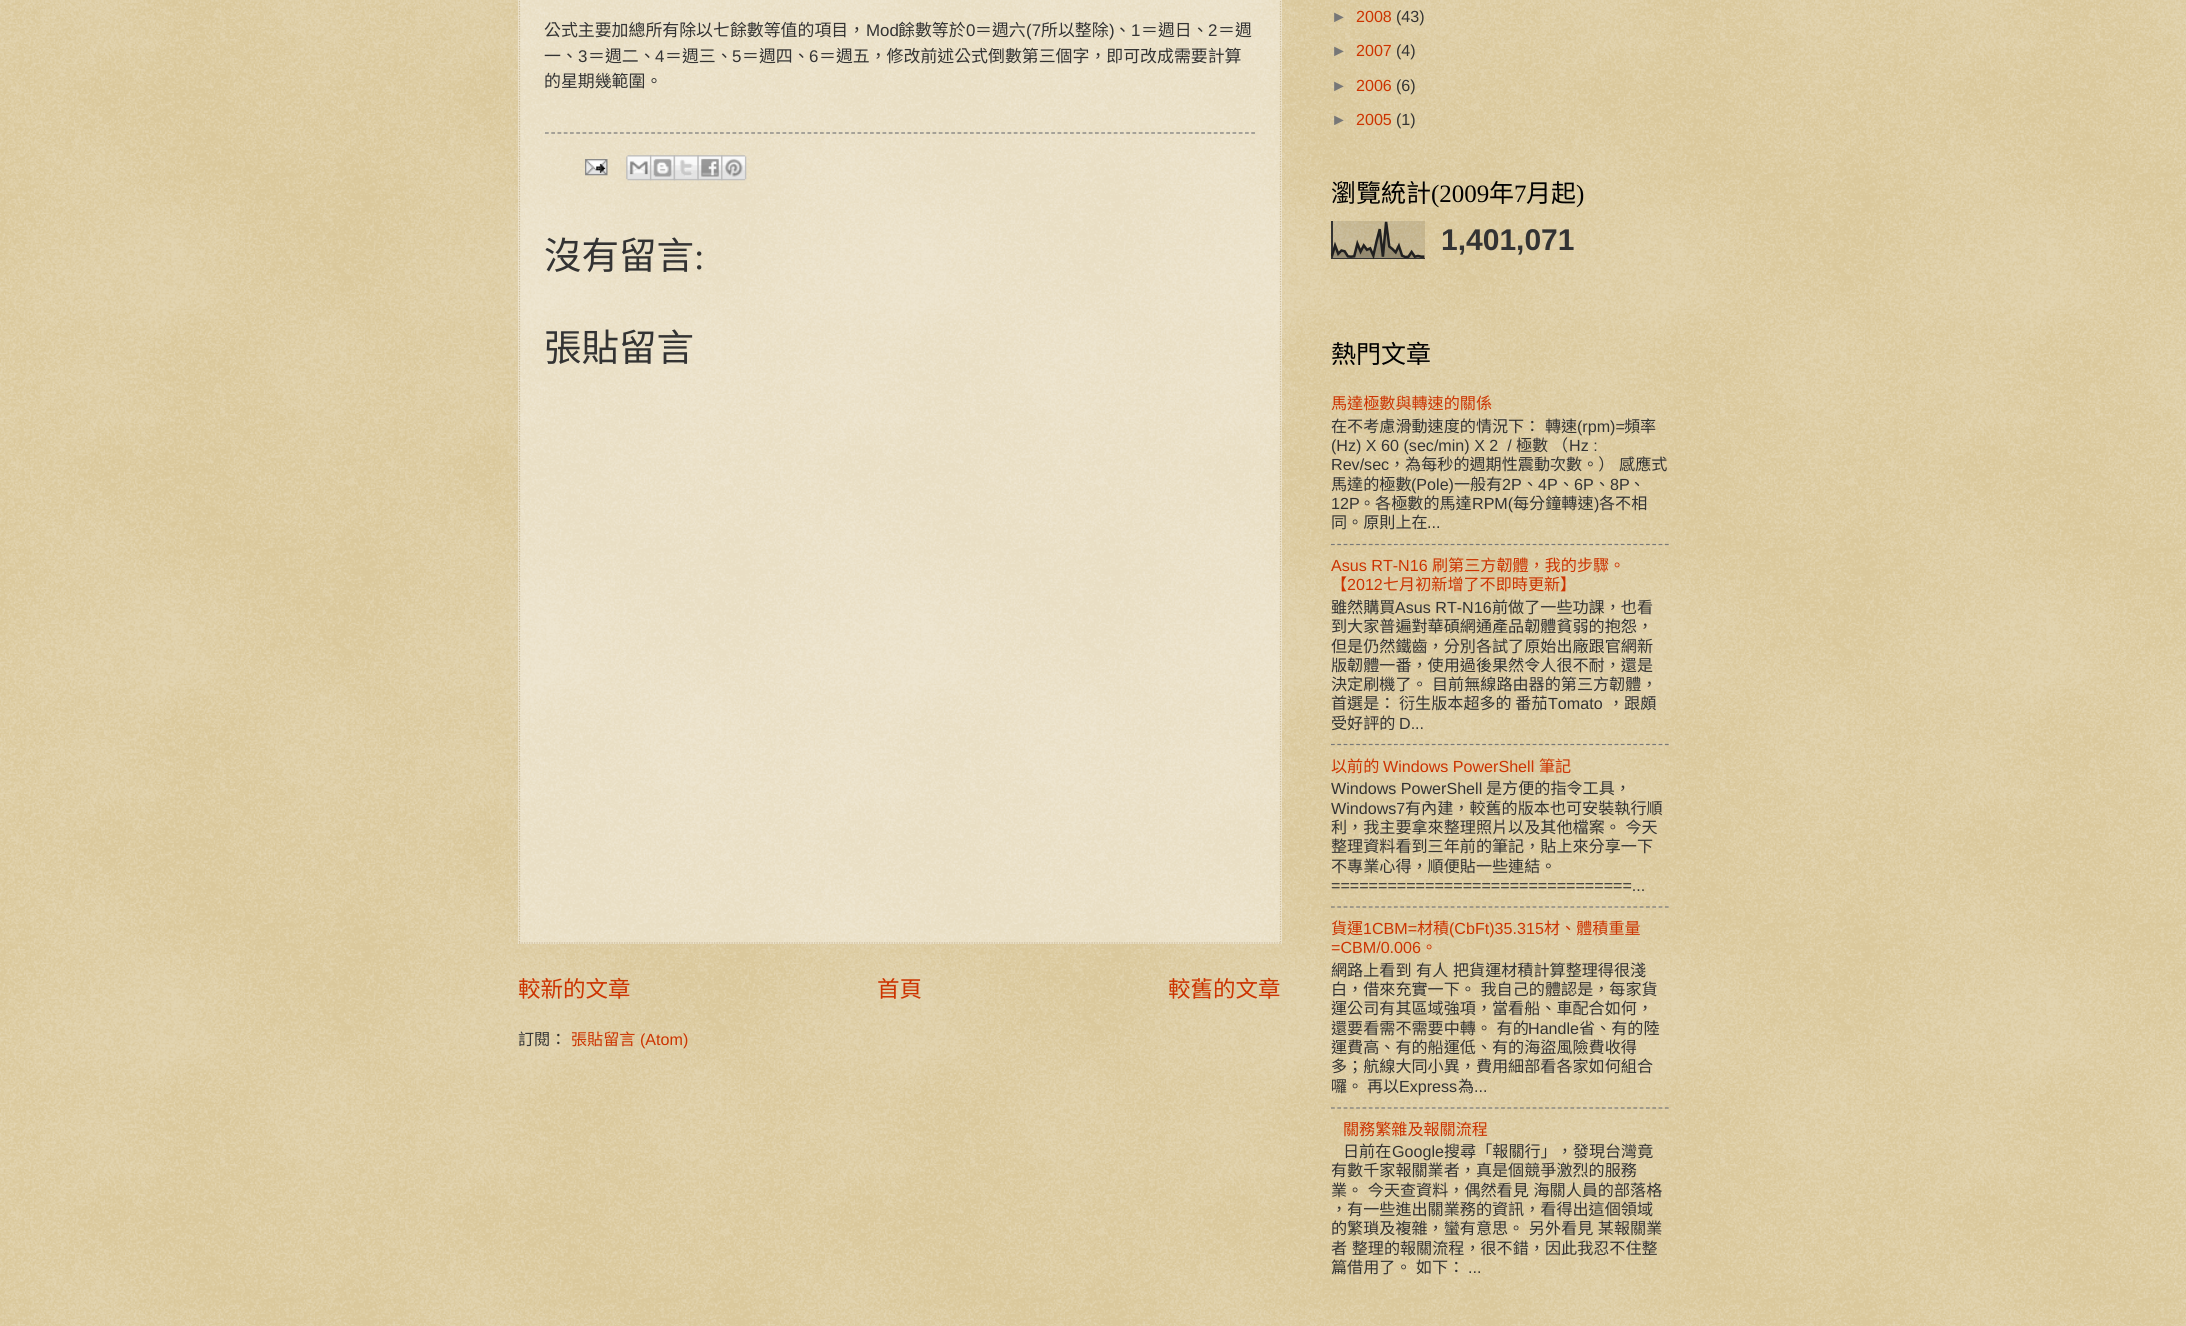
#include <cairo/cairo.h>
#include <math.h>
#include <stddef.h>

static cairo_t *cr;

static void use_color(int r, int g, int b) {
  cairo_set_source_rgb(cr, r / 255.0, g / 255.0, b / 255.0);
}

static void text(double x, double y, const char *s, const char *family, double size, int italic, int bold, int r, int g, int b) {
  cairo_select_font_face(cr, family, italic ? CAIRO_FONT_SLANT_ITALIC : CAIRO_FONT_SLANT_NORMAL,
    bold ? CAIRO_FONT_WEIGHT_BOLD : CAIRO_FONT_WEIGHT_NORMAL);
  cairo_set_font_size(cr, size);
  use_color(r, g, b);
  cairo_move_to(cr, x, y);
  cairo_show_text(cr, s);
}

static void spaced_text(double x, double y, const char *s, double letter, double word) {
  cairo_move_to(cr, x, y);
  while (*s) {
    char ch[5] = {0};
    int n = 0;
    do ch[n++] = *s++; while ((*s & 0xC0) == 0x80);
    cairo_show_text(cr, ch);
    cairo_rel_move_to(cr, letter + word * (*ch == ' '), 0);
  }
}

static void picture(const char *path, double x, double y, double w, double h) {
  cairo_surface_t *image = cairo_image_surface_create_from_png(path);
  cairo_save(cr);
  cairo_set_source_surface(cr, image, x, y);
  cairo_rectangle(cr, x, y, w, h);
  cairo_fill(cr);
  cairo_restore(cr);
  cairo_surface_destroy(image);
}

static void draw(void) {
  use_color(192, 161, 84);
  cairo_paint(cr);
  picture("img_01.png", 0, 0, 2186, 1326);
  cairo_set_source_rgba(cr, 1, 1, 1, 0.4);
  cairo_rectangle(cr, 518, 0, 764, 944);
  cairo_fill(cr);
  cairo_new_path(cr);
  cairo_move_to(cr, 1280.5, -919);
  cairo_line_to(cr, 1280.5, 944);
  use_color(204, 187, 153);
  cairo_set_line_width(cr, 1.2);
  cairo_set_dash(cr, (double[]){1.25, 1.25}, 2, 0);
  cairo_stroke(cr);
  cairo_new_path(cr);
  cairo_move_to(cr, 519, 943);
  cairo_line_to(cr, 1281, 943);
  cairo_stroke(cr);
  cairo_new_path(cr);
  cairo_move_to(cr, 519.5, -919);
  cairo_line_to(cr, 519.5, 944);
  cairo_stroke(cr);
  cairo_new_path(cr);
  cairo_move_to(cr, 545, 133);
  cairo_line_to(cr, 1255, 133);
  use_color(119, 119, 119);
  cairo_set_dash(cr, (double[]){3.75, 2.5}, 2, 0);
  cairo_stroke(cr);
  picture("img_02.png", 585, 159, 23, 17);
  picture("img_03.png", 626, 155, 26, 26);
  picture("img_04.png", 650, 155, 25, 26);
  picture("img_05.png", 673, 155, 26, 26);
  picture("img_06.png", 697, 155, 26, 26);
  picture("img_07.png", 721, 155, 26, 26);
  picture("img_08.png", 1331, 221, 94, 38);
  cairo_new_path(cr);
  cairo_move_to(cr, 1331, 544.5);
  cairo_line_to(cr, 1669, 544.5);
  cairo_set_dash(cr, (double[]){3.75, 2.55}, 2, 0);
  cairo_stroke(cr);
  cairo_new_path(cr);
  cairo_move_to(cr, 1331, 744.5);
  cairo_line_to(cr, 1669, 744.5);
  cairo_stroke(cr);
  cairo_new_path(cr);
  cairo_move_to(cr, 1331, 907);
  cairo_line_to(cr, 1669, 907);
  cairo_stroke(cr);
  cairo_new_path(cr);
  cairo_move_to(cr, 1331, 1108);
  cairo_line_to(cr, 1669, 1108);
  cairo_stroke(cr);
  text(544, 36, "公式主要加總所有除以七餘數等值的項目，", "Noto Sans CJK TC", 16.9, 0, 0, 51, 51, 51);
  text(866, 36, "Mod", "Liberation Sans", 16.9, 0, 0, 51, 51, 51);
  text(898, 36, "餘數等於", "Noto Sans CJK TC", 16.9, 0, 0, 51, 51, 51);
  text(966, 36, "0", "Liberation Sans", 16.9, 0, 0, 51, 51, 51);
  text(975, 36, "＝週六", "Noto Sans CJK TC", 16.9, 0, 0, 51, 51, 51);
  text(1026, 36, "(7", "Liberation Sans", 16.9, 0, 0, 51, 51, 51);
  text(1041, 36, "所以整除", "Noto Sans CJK TC", 16.9, 0, 0, 51, 51, 51);
  text(1109, 36, ")", "Liberation Sans", 16.9, 0, 0, 51, 51, 51);
  text(1114, 36, "、", "Noto Sans CJK TC", 16.9, 0, 0, 51, 51, 51);
  text(1131, 36, "1", "Liberation Sans", 16.9, 0, 0, 51, 51, 51);
  text(1141, 36, "＝週日、", "Noto Sans CJK TC", 16.9, 0, 0, 51, 51, 51);
  text(1208, 36, "2", "Liberation Sans", 16.9, 0, 0, 51, 51, 51);
  text(1218, 36, "＝週", "Noto Sans CJK TC", 16.9, 0, 0, 51, 51, 51);
  text(544, 62, "一、", "Noto Sans CJK TC", 16.9, 0, 0, 51, 51, 51);
  text(578, 62, "3", "Liberation Sans", 16.9, 0, 0, 51, 51, 51);
  text(588, 62, "＝週二、", "Noto Sans CJK TC", 16.9, 0, 0, 51, 51, 51);
  text(655, 62, "4", "Liberation Sans", 16.9, 0, 0, 51, 51, 51);
  text(665, 62, "＝週三、", "Noto Sans CJK TC", 16.9, 0, 0, 51, 51, 51);
  text(732, 62, "5", "Liberation Sans", 16.9, 0, 0, 51, 51, 51);
  text(742, 62, "＝週四、", "Noto Sans CJK TC", 16.9, 0, 0, 51, 51, 51);
  text(809, 62, "6", "Liberation Sans", 16.9, 0, 0, 51, 51, 51);
  text(819, 62, "＝週五，修改前述公式倒數第三個字，即可改成需要計算", "Noto Sans CJK TC", 16.9, 0, 0, 51, 51, 51);
  text(544, 87, "的星期幾範圍。", "Noto Sans CJK TC", 16.9, 0, 0, 51, 51, 51);
  text(544, 269, "沒有留言", "Noto Sans CJK TC", 37.5, 0, 0, 51, 51, 51);
  text(694, 269, ":", "Liberation Serif", 37.5, 0, 0, 51, 51, 51);
  text(544, 361, "張貼留言", "Noto Sans CJK TC", 37.5, 0, 0, 51, 51, 51);
  text(518, 997, "較新的文章", "Noto Sans CJK TC", 22.5, 0, 0, 204, 51, 0);
  text(877, 997, "首頁", "Noto Sans CJK TC", 22.5, 0, 0, 204, 51, 0);
  text(1168, 997, "較舊的文章", "Noto Sans CJK TC", 22.5, 0, 0, 204, 51, 0);
  text(518, 1045, "訂閱：", "Noto Sans CJK TC", 16.1, 0, 0, 51, 51, 51);
  text(571, 1045, "張貼留言", "Noto Sans CJK TC", 16.1, 0, 0, 204, 51, 0);
  text(640, 1045, "(Atom)", "Liberation Sans", 16.1, 0, 0, 204, 51, 0);
  text(1331, 22, "►", "Liberation Sans", 16.1, 0, 0, 119, 119, 119);
  text(1356, 22, "2008", "Liberation Sans", 16.1, 0, 0, 204, 51, 0);
  text(1396, 22, "(43)", "Liberation Sans", 16.1, 0, 0, 51, 51, 51);
  text(1331, 56, "►", "Liberation Sans", 16.1, 0, 0, 119, 119, 119);
  text(1356, 56, "2007", "Liberation Sans", 16.1, 0, 0, 204, 51, 0);
  text(1396, 56, "(4)", "Liberation Sans", 16.1, 0, 0, 51, 51, 51);
  text(1331, 91, "►", "Liberation Sans", 16.1, 0, 0, 119, 119, 119);
  text(1356, 91, "2006", "Liberation Sans", 16.1, 0, 0, 204, 51, 0);
  text(1396, 91, "(6)", "Liberation Sans", 16.1, 0, 0, 51, 51, 51);
  text(1331, 125, "►", "Liberation Sans", 16.1, 0, 0, 119, 119, 119);
  text(1356, 125, "2005", "Liberation Sans", 16.1, 0, 0, 204, 51, 0);
  text(1396, 125, "(1)", "Liberation Sans", 16.1, 0, 0, 51, 51, 51);
  text(1331, 202, "瀏覽統計", "Noto Sans CJK TC", 25, 0, 0, 0, 0, 0);
  text(1431, 202, "(2009", "Liberation Serif", 25, 0, 0, 0, 0, 0);
  text(1489, 202, "年", "Noto Sans CJK TC", 25, 0, 0, 0, 0, 0);
  text(1514, 202, "7", "Liberation Serif", 25, 0, 0, 0, 0, 0);
  text(1526, 202, "月起", "Noto Sans CJK TC", 25, 0, 0, 0, 0, 0);
  text(1576, 202, ")", "Liberation Serif", 25, 0, 0, 0, 0, 0);
  text(1441, 250, "1,401,071", "Liberation Sans", 30, 0, 1, 51, 51, 51);
  text(1331, 363, "熱門文章", "Noto Sans CJK TC", 25, 0, 0, 0, 0, 0);
  text(1331, 409, "馬達極數與轉速的關係", "Noto Sans CJK TC", 16.1, 0, 0, 204, 51, 0);
  use_color(51, 51, 51);
  spaced_text(1331, 432, "在不考慮滑動速度的情況下： 轉速", 0, 1);
  text(1577, 432, "(rpm)=", "Liberation Sans", 16.1, 0, 0, 51, 51, 51);
  text(1624, 432, "頻率", "Noto Sans CJK TC", 16.1, 0, 0, 51, 51, 51);
  text(1331, 451, "(Hz) X 60 (sec/min) X 2  /", "Liberation Sans", 16.1, 0, 0, 51, 51, 51);
  text(1516, 451, "極數", "Noto Sans CJK TC", 16.1, 0, 0, 51, 51, 51);
  text(1552, 451, "（", "Noto Sans CJK TC", 16.1, 0, 0, 51, 51, 51);
  text(1569, 451, "Hz :", "Liberation Sans", 16.1, 0, 0, 51, 51, 51);
  text(1331, 470, "Rev/sec", "Liberation Sans", 16.1, 0, 0, 51, 51, 51);
  cairo_select_font_face(cr, "Noto Sans CJK TC", CAIRO_FONT_SLANT_NORMAL, CAIRO_FONT_WEIGHT_NORMAL);
  spaced_text(1389, 470, "，為每秒的週期性震動次數。） 感應式", 0, 1);
  text(1331, 490, "馬達的極數", "Noto Sans CJK TC", 16.1, 0, 0, 51, 51, 51);
  text(1411, 490, "(Pole)", "Liberation Sans", 16.1, 0, 0, 51, 51, 51);
  text(1454, 490, "一般有", "Noto Sans CJK TC", 16.1, 0, 0, 51, 51, 51);
  text(1502, 490, "2P", "Liberation Sans", 16.1, 0, 0, 51, 51, 51);
  text(1522, 490, "、", "Noto Sans CJK TC", 16.1, 0, 0, 51, 51, 51);
  text(1538, 490, "4P", "Liberation Sans", 16.1, 0, 0, 51, 51, 51);
  text(1558, 490, "、", "Noto Sans CJK TC", 16.1, 0, 0, 51, 51, 51);
  text(1574, 490, "6P", "Liberation Sans", 16.1, 0, 0, 51, 51, 51);
  text(1594, 490, "、", "Noto Sans CJK TC", 16.1, 0, 0, 51, 51, 51);
  text(1610, 490, "8P", "Liberation Sans", 16.1, 0, 0, 51, 51, 51);
  text(1629, 490, "、", "Noto Sans CJK TC", 16.1, 0, 0, 51, 51, 51);
  text(1331, 509, "12P", "Liberation Sans", 16.1, 0, 0, 51, 51, 51);
  text(1359, 509, "。各極數的馬達", "Noto Sans CJK TC", 16.1, 0, 0, 51, 51, 51);
  text(1472, 509, "RPM(", "Liberation Sans", 16.1, 0, 0, 51, 51, 51);
  text(1513, 509, "每分鐘轉速", "Noto Sans CJK TC", 16.1, 0, 0, 51, 51, 51);
  text(1594, 509, ")", "Liberation Sans", 16.1, 0, 0, 51, 51, 51);
  text(1599, 509, "各不相", "Noto Sans CJK TC", 16.1, 0, 0, 51, 51, 51);
  text(1331, 528, "同。原則上在", "Noto Sans CJK TC", 16.1, 0, 0, 51, 51, 51);
  text(1427, 528, "...", "Liberation Sans", 16.1, 0, 0, 51, 51, 51);
  text(1331, 571, "Asus RT-N16", "Liberation Sans", 16.1, 0, 0, 204, 51, 0);
  text(1432, 571, "刷第三方韌體，我的步驟。", "Noto Sans CJK TC", 16.1, 0, 0, 204, 51, 0);
  text(1331, 590, "【", "Noto Sans CJK TC", 16.1, 0, 0, 204, 51, 0);
  text(1347, 590, "2012", "Liberation Sans", 16.1, 0, 0, 204, 51, 0);
  text(1383, 590, "七月初新增了不即時更新】", "Noto Sans CJK TC", 16.1, 0, 0, 204, 51, 0);
  text(1331, 613, "雖然購買", "Noto Sans CJK TC", 16.1, 0, 0, 51, 51, 51);
  text(1395, 613, "Asus RT-N16", "Liberation Sans", 16.1, 0, 0, 51, 51, 51);
  text(1492, 613, "前做了一些功課，也看", "Noto Sans CJK TC", 16.1, 0, 0, 51, 51, 51);
  text(1331, 632, "到大家普遍對華碩網通產品韌體貧弱的抱怨，", "Noto Sans CJK TC", 16.1, 0, 0, 51, 51, 51);
  text(1331, 652, "但是仍然鐵齒，分別各試了原始出廠跟官網新", "Noto Sans CJK TC", 16.1, 0, 0, 51, 51, 51);
  text(1331, 671, "版韌體一番，使用過後果然令人很不耐，還是", "Noto Sans CJK TC", 16.1, 0, 0, 51, 51, 51);
  text(1331, 690, "決定刷機了。", "Noto Sans CJK TC", 16.1, 0, 0, 51, 51, 51);
  text(1432, 690, "目前無線路由器的第三方韌體，", "Noto Sans CJK TC", 16.1, 0, 0, 51, 51, 51);
  text(1331, 709, "首選是：", "Noto Sans CJK TC", 16.1, 0, 0, 51, 51, 51);
  text(1399, 709, "衍生版本超多的 番茄", "Noto Sans CJK TC", 16.1, 0, 0, 51, 51, 51);
  text(1548, 709, "Tomato", "Liberation Sans", 16.1, 0, 0, 51, 51, 51);
  text(1608, 709, "，跟頗", "Noto Sans CJK TC", 16.1, 0, 0, 51, 51, 51);
  text(1331, 729, "受好評的", "Noto Sans CJK TC", 16.1, 0, 0, 51, 51, 51);
  text(1399, 729, "D...", "Liberation Sans", 16.1, 0, 0, 51, 51, 51);
  text(1331, 772, "以前的", "Noto Sans CJK TC", 16.1, 0, 0, 204, 51, 0);
  text(1383, 772, "Windows PowerShell", "Liberation Sans", 16.1, 0, 0, 204, 51, 0);
  text(1539, 772, "筆記", "Noto Sans CJK TC", 16.1, 0, 0, 204, 51, 0);
  text(1331, 794, "Windows PowerShell", "Liberation Sans", 16.1, 0, 0, 51, 51, 51);
  text(1486, 794, "是方便的指令工具，", "Noto Sans CJK TC", 16.1, 0, 0, 51, 51, 51);
  text(1331, 814, "Windows7", "Liberation Sans", 16.1, 0, 0, 51, 51, 51);
  text(1405, 814, "有內建，較舊的版本也可安裝執行順", "Noto Sans CJK TC", 16.1, 0, 0, 51, 51, 51);
  spaced_text(1331, 833, "利，我主要拿來整理照片以及其他檔案。 今天", 0, 1);
  text(1331, 852, "整理資料看到三年前的筆記，貼上來分享一下", "Noto Sans CJK TC", 16.1, 0, 0, 51, 51, 51);
  text(1331, 872, "不專業心得，順便貼一些連結。", "Noto Sans CJK TC", 16.1, 0, 0, 51, 51, 51);
  text(1331, 891, "================================...", "Liberation Sans", 16.1, 0, 0, 51, 51, 51);
  text(1331, 934, "貨運", "Noto Sans CJK TC", 16.1, 0, 0, 204, 51, 0);
  text(1363, 934, "1CBM=", "Liberation Sans", 16.1, 0, 0, 204, 51, 0);
  text(1417, 934, "材積", "Noto Sans CJK TC", 16.1, 0, 0, 204, 51, 0);
  text(1449, 934, "(CbFt)35.315", "Liberation Sans", 16.1, 0, 0, 204, 51, 0);
  text(1544, 934, "材、體積重量", "Noto Sans CJK TC", 16.1, 0, 0, 204, 51, 0);
  text(1331, 953, "=CBM/0.006", "Liberation Sans", 16.1, 0, 0, 204, 51, 0);
  text(1421, 953, "。", "Noto Sans CJK TC", 16.1, 0, 0, 204, 51, 0);
  use_color(51, 51, 51);
  spaced_text(1331, 976, "網路上看到 有人 把貨運材積計算整理得很淺", 0, 1);
  spaced_text(1331, 995, "白，借來充實一下。 我自己的體認是，每家貨", 0, 1);
  text(1331, 1014, "運公司有其區域強項，當看船、車配合如何，", "Noto Sans CJK TC", 16.1, 0, 0, 51, 51, 51);
  spaced_text(1331, 1034, "還要看需不需要中轉。 有的", 0, 1);
  text(1528, 1034, "Handle", "Liberation Sans", 16.1, 0, 0, 51, 51, 51);
  text(1579, 1034, "省、有的陸", "Noto Sans CJK TC", 16.1, 0, 0, 51, 51, 51);
  text(1331, 1053, "運費高、有的船運低、有的海盜風險費收得", "Noto Sans CJK TC", 16.1, 0, 0, 51, 51, 51);
  text(1331, 1072, "多；航線大同小異，費用細部看各家如何組合", "Noto Sans CJK TC", 16.1, 0, 0, 51, 51, 51);
  text(1331, 1092, "囉。", "Noto Sans CJK TC", 16.1, 0, 0, 51, 51, 51);
  text(1367, 1092, "再以", "Noto Sans CJK TC", 16.1, 0, 0, 51, 51, 51);
  text(1399, 1092, "Express", "Liberation Sans", 16.1, 0, 0, 51, 51, 51);
  text(1458, 1092, "為", "Noto Sans CJK TC", 16.1, 0, 0, 51, 51, 51);
  text(1474, 1092, "...", "Liberation Sans", 16.1, 0, 0, 51, 51, 51);
  text(1343, 1135, "關務繁雜及報關流程", "Noto Sans CJK TC", 16.1, 0, 0, 204, 51, 0);
  text(1343, 1157, "日前在", "Noto Sans CJK TC", 16.1, 0, 0, 51, 51, 51);
  text(1392, 1157, "Google", "Liberation Sans", 16.1, 0, 0, 51, 51, 51);
  text(1444, 1157, "搜尋「報關行」，發現台灣竟", "Noto Sans CJK TC", 16.1, 0, 0, 51, 51, 51);
  text(1331, 1176, "有數千家報關業者，真是個競爭激烈的服務", "Noto Sans CJK TC", 16.1, 0, 0, 51, 51, 51);
  spaced_text(1331, 1196, "業。 今天查資料，偶然看見 海關人員的部落格", 0, 1);
  text(1331, 1215, "，有一些進出關業務的資訊，看得出這個領域", "Noto Sans CJK TC", 16.1, 0, 0, 51, 51, 51);
  spaced_text(1331, 1234, "的繁瑣及複雜，蠻有意思。 另外看見 某報關業", 0, 1);
  spaced_text(1331, 1254, "者 整理的報關流程，很不錯，因此我忍不住整", 0, 1);
  text(1331, 1273, "篇借用了。", "Noto Sans CJK TC", 16.1, 0, 0, 51, 51, 51);
  text(1416, 1273, "如下：", "Noto Sans CJK TC", 16.1, 0, 0, 51, 51, 51);
  text(1468, 1273, "...", "Liberation Sans", 16.1, 0, 0, 51, 51, 51);
}

int main(void) {
  cairo_surface_t *surface = cairo_image_surface_create(CAIRO_FORMAT_RGB24, 2186, 1326);
  cr = cairo_create(surface);
  cairo_font_options_t *options = cairo_font_options_create();
  cairo_font_options_set_hint_metrics(options, CAIRO_HINT_METRICS_OFF);
  cairo_font_options_set_hint_style(options, CAIRO_HINT_STYLE_NONE);
  cairo_set_font_options(cr, options);
  cairo_set_miter_limit(cr, 4);
  draw();
  cairo_surface_write_to_png(surface, "out.png");
  cairo_font_options_destroy(options);
  cairo_destroy(cr);
  cairo_surface_destroy(surface);
  return 0;
}
